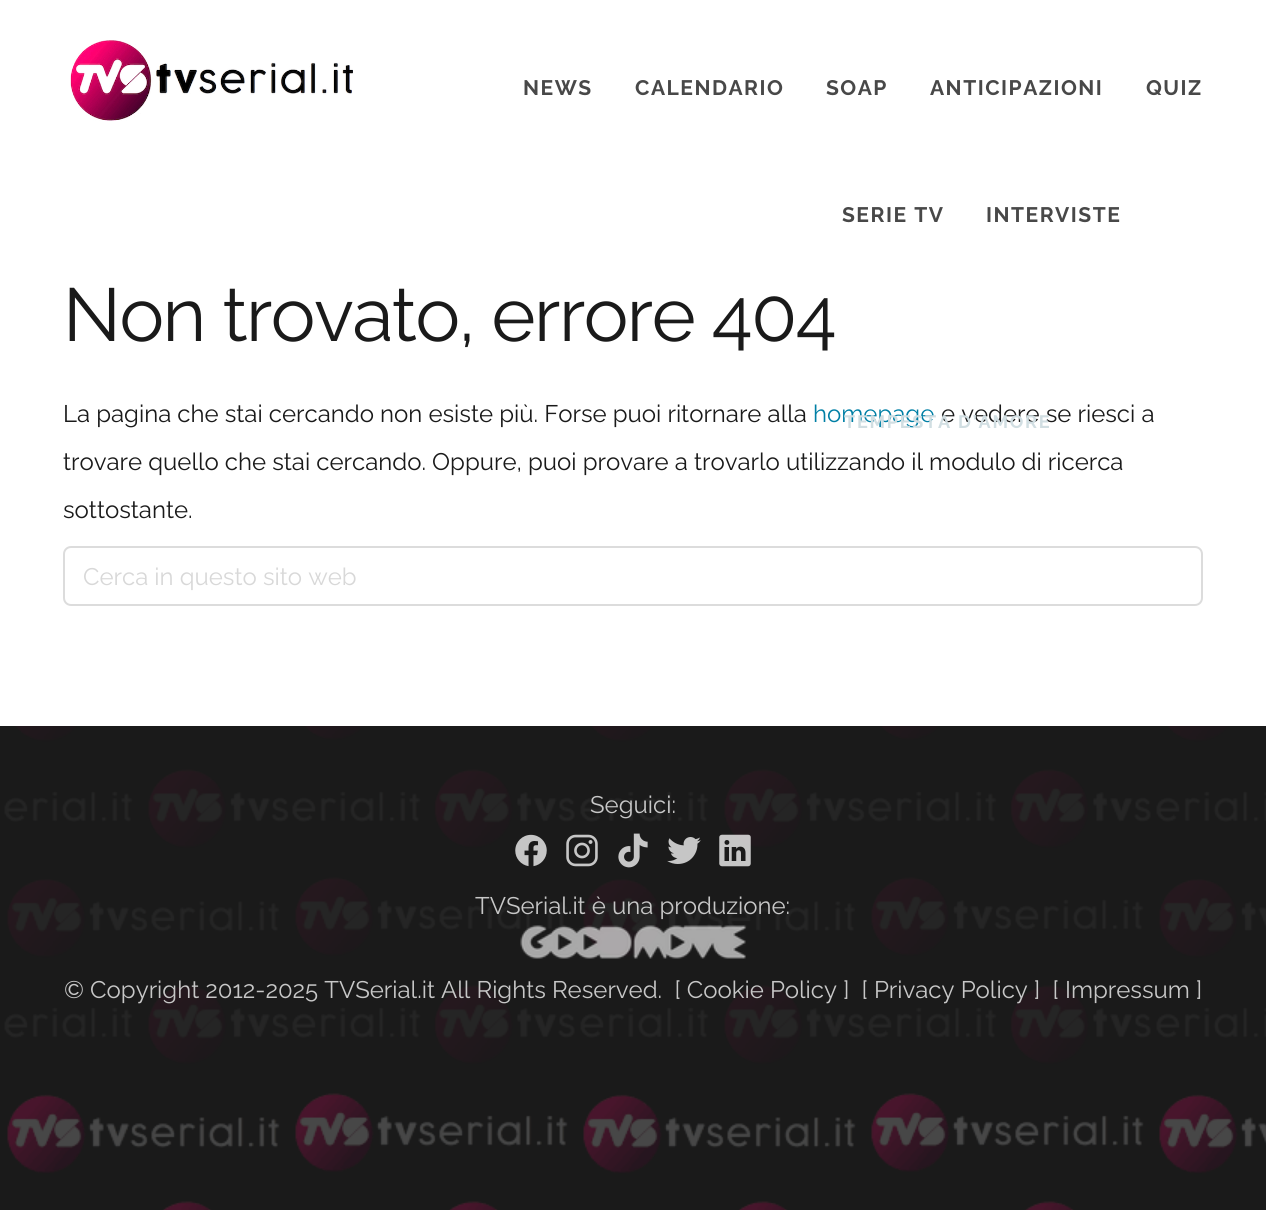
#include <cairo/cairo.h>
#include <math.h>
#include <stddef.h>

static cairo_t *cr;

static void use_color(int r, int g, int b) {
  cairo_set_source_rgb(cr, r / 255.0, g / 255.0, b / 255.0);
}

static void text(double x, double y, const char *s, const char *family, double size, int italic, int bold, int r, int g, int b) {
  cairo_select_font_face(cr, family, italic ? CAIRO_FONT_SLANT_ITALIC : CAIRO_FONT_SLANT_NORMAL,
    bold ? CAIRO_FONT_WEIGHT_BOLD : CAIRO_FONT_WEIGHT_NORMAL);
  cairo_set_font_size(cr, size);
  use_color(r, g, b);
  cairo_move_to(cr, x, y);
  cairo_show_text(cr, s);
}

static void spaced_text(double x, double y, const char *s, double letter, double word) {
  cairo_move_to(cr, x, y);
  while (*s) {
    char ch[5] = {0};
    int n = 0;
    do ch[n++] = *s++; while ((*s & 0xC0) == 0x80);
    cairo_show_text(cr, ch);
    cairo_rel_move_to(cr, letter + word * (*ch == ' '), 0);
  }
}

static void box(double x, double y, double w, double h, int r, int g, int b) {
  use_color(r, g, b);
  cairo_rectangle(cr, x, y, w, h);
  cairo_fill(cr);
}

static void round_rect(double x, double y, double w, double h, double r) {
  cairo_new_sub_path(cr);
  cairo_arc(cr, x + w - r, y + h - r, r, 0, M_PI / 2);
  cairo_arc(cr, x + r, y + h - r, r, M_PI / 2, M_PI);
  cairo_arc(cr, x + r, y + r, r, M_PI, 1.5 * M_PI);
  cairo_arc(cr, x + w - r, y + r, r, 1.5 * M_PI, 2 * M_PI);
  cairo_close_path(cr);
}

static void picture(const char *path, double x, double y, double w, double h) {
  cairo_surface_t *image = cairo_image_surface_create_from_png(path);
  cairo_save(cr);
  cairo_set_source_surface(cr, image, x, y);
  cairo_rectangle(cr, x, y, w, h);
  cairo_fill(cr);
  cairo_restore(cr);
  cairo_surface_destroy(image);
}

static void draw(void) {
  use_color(26, 26, 26);
  cairo_paint(cr);
  picture("img_01.png", 4, 726, 1262, 484);
  box(0, 0, 1266, 726, 255, 255, 255);
  picture("img_02.png", 70, 40, 283, 81);
  round_rect(64, 547, 1138, 58, 7);
  use_color(220, 220, 220);
  cairo_stroke(cr);
  cairo_set_source_rgba(cr, 0.102, 0.102, 0.102, 0.75);
  cairo_rectangle(cr, 4, 726, 1262, 338);
  cairo_fill(cr);
  picture("img_03.png", 515, 834, 32, 33);
  picture("img_04.png", 566, 834, 32, 33);
  picture("img_05.png", 618, 833, 30, 35);
  picture("img_06.png", 667, 837, 34, 27);
  picture("img_07.png", 719, 834, 32, 33);
  picture("img_08.png", 520, 925, 226, 34);
  cairo_select_font_face(cr, "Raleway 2 Thin", CAIRO_FONT_SLANT_NORMAL, CAIRO_FONT_WEIGHT_NORMAL);
  cairo_set_font_size(cr, 21);
  use_color(72, 72, 72);
  spaced_text(523, 95, "NEWS", 1.5, 0);
  spaced_text(635, 95, "CALENDARIO", 1.5, 0);
  spaced_text(826, 95, "SOAP", 1.5, 0);
  spaced_text(930, 95, "ANTICIPAZIONI", 1.5, 0);
  spaced_text(1146, 95, "QUIZ", 1.5, 0);
  spaced_text(842, 222, "SERIE TV", 1.5, 0);
  spaced_text(986, 222, "INTERVISTE", 1.5, 0);
  cairo_select_font_face(cr, "Raleway Thin", CAIRO_FONT_SLANT_NORMAL, CAIRO_FONT_WEIGHT_NORMAL);
  cairo_set_font_size(cr, 75);
  use_color(26, 26, 26);
  spaced_text(63, 341, "Non trovato, errore 404", -1.5, 0);
  text(63, 422, "La pagina che stai cercando non esiste più. Forse puoi ritornare alla", "Raleway Thin", 24, 0, 0, 26, 26, 26);
  text(813, 422, "homepage", "Raleway Thin", 24, 0, 0, 0, 127, 165);
  text(941, 422, "e vedere se riesci a", "Raleway Thin", 24, 0, 0, 26, 26, 26);
  cairo_select_font_face(cr, "Raleway 2 Thin", CAIRO_FONT_SLANT_NORMAL, CAIRO_FONT_WEIGHT_NORMAL);
  cairo_set_font_size(cr, 18);
  use_color(209, 222, 226);
  spaced_text(844, 428, "TEMPESTA D’AMORE", 1.75, 0);
  text(63, 470, "trovare quello che stai cercando. Oppure, puoi provare a trovarlo utilizzando il modulo di ricerca", "Raleway Thin", 24, 0, 0, 26, 26, 26);
  text(63, 518, "sottostante.", "Raleway Thin", 24, 0, 0, 26, 26, 26);
  text(83, 585, "Cerca in questo sito web", "Raleway Thin", 24, 0, 0, 216, 216, 216);
  text(590, 813, "Seguici:", "Raleway Thin", 24, 0, 0, 199, 199, 199);
  text(475, 914, "TVSerial.it è una produzione:", "Raleway Thin", 24, 0, 0, 199, 199, 199);
  text(64, 998, "© Copyright 2012-2025 TVSerial.it All Rights Reserved.  [ Cookie Policy ]  [ Privacy Policy", "Raleway Thin", 24, 0, 0, 199, 199, 199);
  text(1034, 998, "]  [", "Raleway Thin", 24, 0, 0, 199, 199, 199);
  text(1065, 998, "Impressum ]", "Raleway Thin", 24, 0, 0, 199, 199, 199);
}

int main(void) {
  cairo_surface_t *surface = cairo_image_surface_create(CAIRO_FORMAT_RGB24, 1266, 1210);
  cr = cairo_create(surface);
  cairo_font_options_t *options = cairo_font_options_create();
  cairo_font_options_set_hint_metrics(options, CAIRO_HINT_METRICS_OFF);
  cairo_font_options_set_hint_style(options, CAIRO_HINT_STYLE_NONE);
  cairo_set_font_options(cr, options);
  cairo_set_miter_limit(cr, 4);
  draw();
  cairo_surface_write_to_png(surface, "out.png");
  cairo_font_options_destroy(options);
  cairo_destroy(cr);
  cairo_surface_destroy(surface);
  return 0;
}
